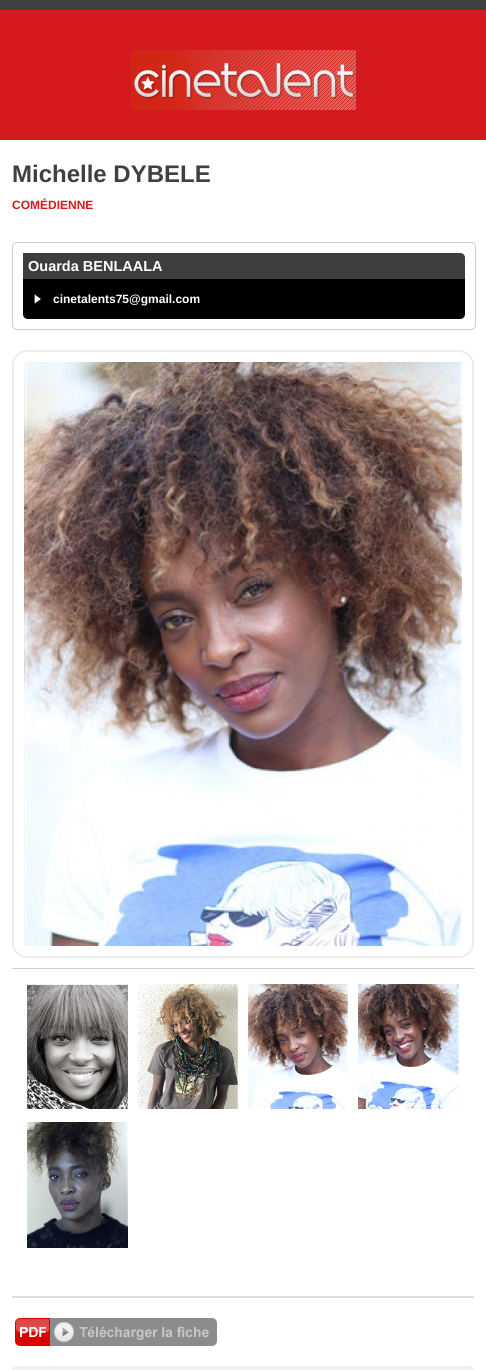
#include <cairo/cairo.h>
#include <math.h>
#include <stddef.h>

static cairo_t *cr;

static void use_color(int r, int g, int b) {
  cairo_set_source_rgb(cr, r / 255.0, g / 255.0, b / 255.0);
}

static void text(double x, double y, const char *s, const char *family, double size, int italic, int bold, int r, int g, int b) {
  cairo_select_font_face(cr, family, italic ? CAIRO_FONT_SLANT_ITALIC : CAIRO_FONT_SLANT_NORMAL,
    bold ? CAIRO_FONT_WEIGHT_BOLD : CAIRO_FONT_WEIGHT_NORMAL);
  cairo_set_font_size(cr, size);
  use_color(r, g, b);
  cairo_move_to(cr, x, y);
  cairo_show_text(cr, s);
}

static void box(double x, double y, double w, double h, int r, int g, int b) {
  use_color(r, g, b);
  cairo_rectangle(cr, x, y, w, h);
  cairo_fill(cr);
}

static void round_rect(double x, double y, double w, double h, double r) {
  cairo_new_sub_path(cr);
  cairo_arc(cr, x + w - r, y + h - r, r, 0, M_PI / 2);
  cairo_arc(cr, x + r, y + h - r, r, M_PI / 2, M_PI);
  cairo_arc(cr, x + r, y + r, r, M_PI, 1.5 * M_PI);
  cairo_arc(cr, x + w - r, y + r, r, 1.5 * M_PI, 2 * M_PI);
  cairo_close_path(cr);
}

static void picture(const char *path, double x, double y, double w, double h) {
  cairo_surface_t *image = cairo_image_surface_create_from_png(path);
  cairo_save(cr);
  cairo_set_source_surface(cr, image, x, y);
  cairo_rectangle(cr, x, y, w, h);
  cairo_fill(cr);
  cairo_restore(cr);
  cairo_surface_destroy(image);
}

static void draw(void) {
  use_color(255, 255, 255);
  cairo_paint(cr);
  box(0, 10, 486, 130, 212, 26, 30);
  box(0, 0, 486, 10, 64, 64, 64);
  picture("img_01.png", 131, 20, 225, 110);
  round_rect(12.5, 242.5, 463, 87, 4.5);
  use_color(206, 206, 206);
  cairo_set_line_width(cr, 1);
  cairo_stroke(cr);
  use_color(62, 62, 62);
  cairo_new_path(cr);
  cairo_move_to(cr, 23, 253);
  cairo_line_to(cr, 460, 253);
  cairo_curve_to(cr, 463, 253, 465, 255, 465, 258);
  cairo_line_to(cr, 465, 279);
  cairo_line_to(cr, 23, 279);
  cairo_close_path(cr);
  cairo_fill(cr);
  use_color(0, 0, 0);
  cairo_new_path(cr);
  cairo_move_to(cr, 23, 279);
  cairo_line_to(cr, 465, 279);
  cairo_line_to(cr, 465, 314);
  cairo_curve_to(cr, 465, 317, 463, 319, 460, 319);
  cairo_line_to(cr, 28, 319);
  cairo_curve_to(cr, 25, 319, 23, 317, 23, 314);
  cairo_close_path(cr);
  cairo_fill(cr);
  picture("img_02.png", 34, 294, 7, 10);
  round_rect(13, 351, 460, 606, 14);
  use_color(237, 237, 237);
  cairo_set_line_width(cr, 2);
  cairo_stroke(cr);
  picture("img_03.png", 24, 362, 438, 584);
  box(12, 968, 462, 1, 206, 206, 206);
  picture("img_04.png", 27, 984, 101, 125);
  picture("img_05.png", 138, 984, 100, 125);
  picture("img_06.png", 248, 984, 100, 125);
  picture("img_07.png", 358, 984, 101, 125);
  picture("img_08.png", 27, 1122, 101, 126);
  box(12, 1296, 462, 2, 222, 222, 222);
  picture("img_09.png", 15, 1318, 202, 28);
  use_color(241, 241, 241);
  round_rect(12, 1366, 462, 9, 5);
  cairo_fill(cr);
  text(12, 182, "Michelle DYBELE", "Liberation Sans", 24, 0, 1, 64, 64, 64);
  text(12, 209, "COMÉDIENNE", "Liberation Sans", 12, 0, 1, 212, 26, 30);
  text(28, 271, "Ouarda BENLAALA", "Liberation Sans", 14.5, 0, 1, 255, 255, 255);
  text(53, 303, "cinetalents75@gmail.com", "Liberation Sans", 12, 0, 1, 255, 255, 255);
}

int main(void) {
  cairo_surface_t *surface = cairo_image_surface_create(CAIRO_FORMAT_RGB24, 486, 1370);
  cr = cairo_create(surface);
  cairo_font_options_t *options = cairo_font_options_create();
  cairo_font_options_set_hint_metrics(options, CAIRO_HINT_METRICS_OFF);
  cairo_font_options_set_hint_style(options, CAIRO_HINT_STYLE_NONE);
  cairo_set_font_options(cr, options);
  cairo_set_miter_limit(cr, 4);
  draw();
  cairo_surface_write_to_png(surface, "out.png");
  cairo_font_options_destroy(options);
  cairo_destroy(cr);
  cairo_surface_destroy(surface);
  return 0;
}
